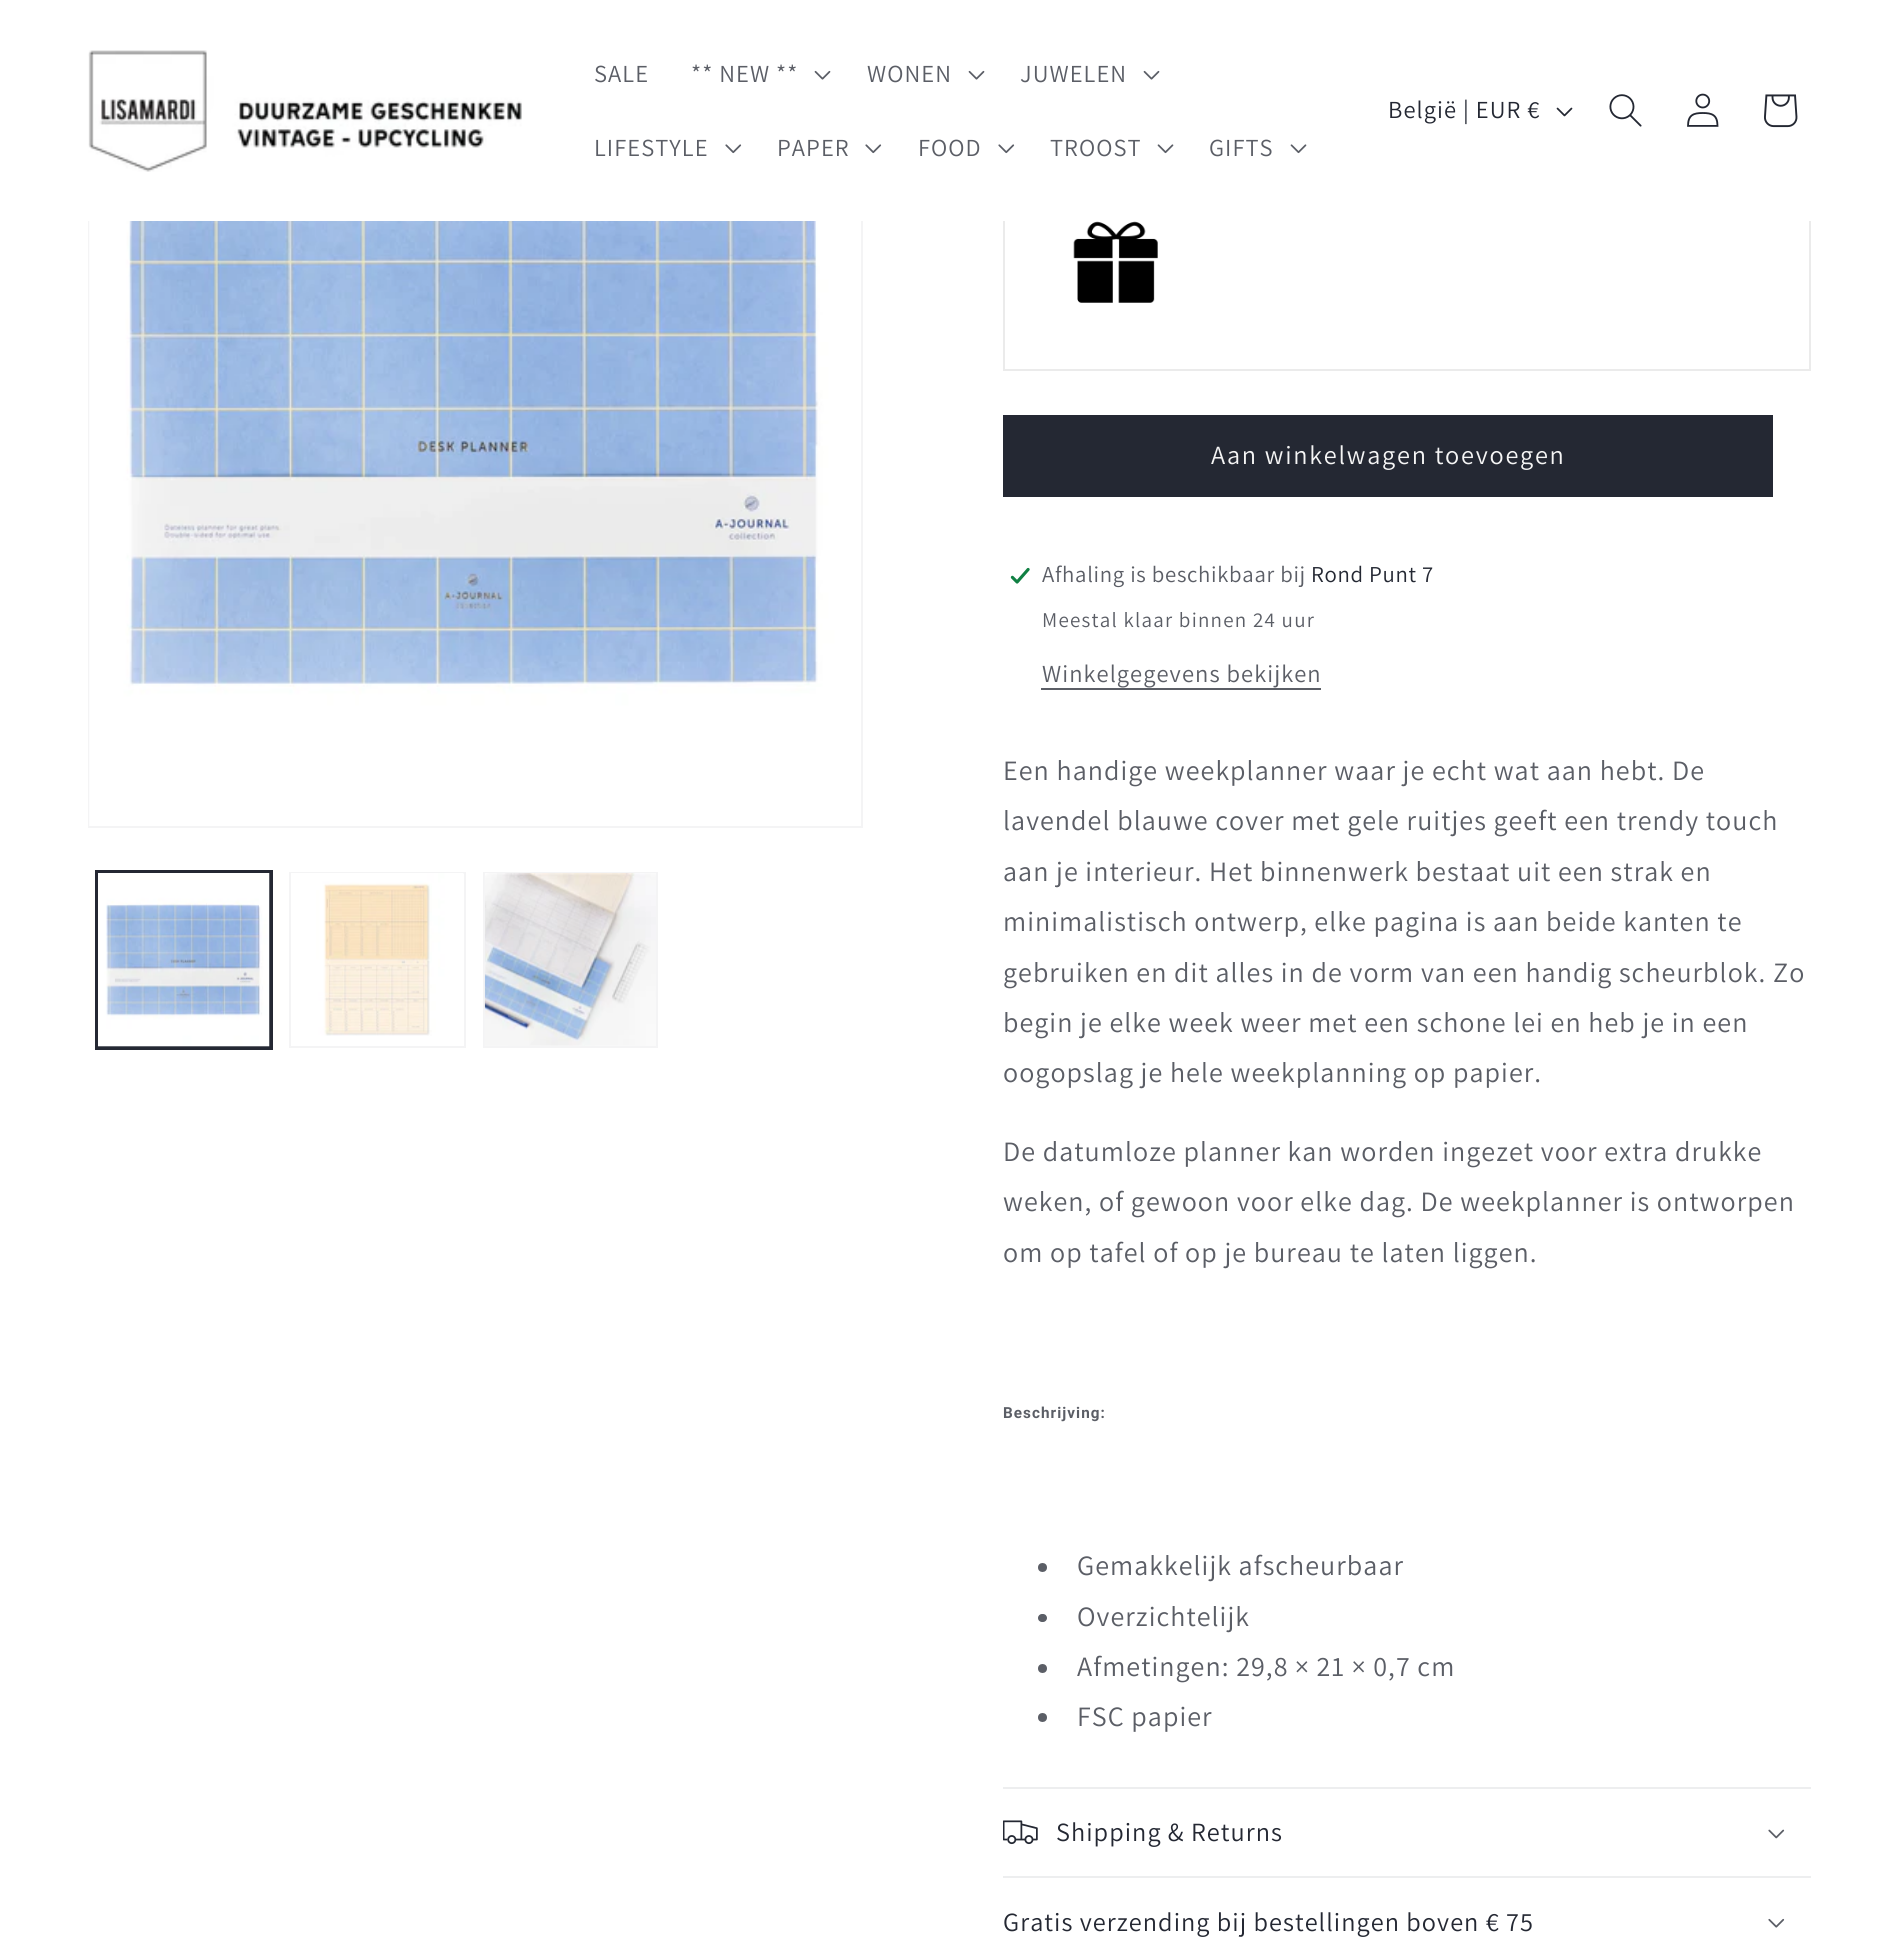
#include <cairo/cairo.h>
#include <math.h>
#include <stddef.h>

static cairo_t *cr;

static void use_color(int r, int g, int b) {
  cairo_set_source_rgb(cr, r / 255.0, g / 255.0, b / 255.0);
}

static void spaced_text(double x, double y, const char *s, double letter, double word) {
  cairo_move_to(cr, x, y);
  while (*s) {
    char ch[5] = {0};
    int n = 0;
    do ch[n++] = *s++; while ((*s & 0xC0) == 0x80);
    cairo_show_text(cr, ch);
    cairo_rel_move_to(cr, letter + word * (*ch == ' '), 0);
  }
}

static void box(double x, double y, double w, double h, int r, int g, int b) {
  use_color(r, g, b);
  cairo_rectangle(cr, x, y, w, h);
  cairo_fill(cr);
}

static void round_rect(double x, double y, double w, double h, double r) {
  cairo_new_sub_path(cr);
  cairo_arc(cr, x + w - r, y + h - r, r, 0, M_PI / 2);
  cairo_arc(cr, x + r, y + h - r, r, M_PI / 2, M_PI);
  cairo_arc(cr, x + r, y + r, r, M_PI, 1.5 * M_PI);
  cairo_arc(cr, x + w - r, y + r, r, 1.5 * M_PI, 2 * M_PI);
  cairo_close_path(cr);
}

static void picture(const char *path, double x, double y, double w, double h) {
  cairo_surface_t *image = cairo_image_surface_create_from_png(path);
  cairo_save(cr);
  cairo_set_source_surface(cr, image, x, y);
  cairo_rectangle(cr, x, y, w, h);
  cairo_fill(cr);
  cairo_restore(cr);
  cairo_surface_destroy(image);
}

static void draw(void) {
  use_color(255, 255, 255);
  cairo_paint(cr);
  cairo_rectangle(cr, 89, 54, 773, 773);
  use_color(244, 244, 245);
  cairo_stroke(cr);
  cairo_rectangle(cr, 1004, 83, 806, 287);
  use_color(235, 235, 235);
  cairo_stroke(cr);
  box(88, 53, 1723, 168, 255, 255, 255);
  picture("img_01.png", 88, 50, 434, 122);
  picture("img_02.png", 814, 70, 17, 10);
  picture("img_02.png", 968, 70, 17, 10);
  picture("img_02.png", 1143, 70, 17, 10);
  picture("img_03.png", 725, 144, 17, 10);
  picture("img_03.png", 865, 144, 17, 10);
  picture("img_03.png", 998, 144, 17, 10);
  picture("img_04.png", 1157, 144, 17, 10);
  picture("img_04.png", 1290, 144, 17, 10);
  picture("img_05.png", 1556, 107, 17, 10);
  picture("img_06.png", 1609, 94, 33, 33);
  picture("img_07.png", 1687, 93, 32, 34);
  picture("img_08.png", 1764, 94, 34, 34);
  picture("img_09.png", 89, 221, 772, 605);
  cairo_rectangle(cr, 96, 871, 176, 178);
  use_color(36, 40, 51);
  cairo_stroke(cr);
  cairo_rectangle(cr, 97, 873, 173, 174);
  cairo_stroke(cr);
  picture("img_10.png", 98, 873, 172, 174);
  cairo_rectangle(cr, 290, 873, 175, 174);
  use_color(244, 244, 245);
  cairo_stroke(cr);
  picture("img_11.png", 291, 873, 173, 163);
  cairo_rectangle(cr, 484, 873, 173, 174);
  cairo_stroke(cr);
  picture("img_12.png", 484, 873, 172, 173);
  picture("img_13.png", 1073, 221, 85, 82);
  box(1003, 415, 770, 82, 36, 40, 51);
  picture("img_14.png", 1010, 567, 20, 17);
  box(1041, 688, 280, 2, 91, 94, 102);
  cairo_arc(cr, 1042.5, 1567.5, 4.5, 0, 2 * M_PI);
  cairo_fill(cr);
  round_rect(1038, 1614, 9, 8, 4);
  cairo_fill(cr);
  cairo_arc(cr, 1042.5, 1668.5, 4.5, 0, 2 * M_PI);
  cairo_fill(cr);
  cairo_arc(cr, 1042.5, 1717.5, 4.5, 0, 2 * M_PI);
  cairo_fill(cr);
  box(1003, 1787, 808, 2, 237, 238, 239);
  box(1003, 1876, 808, 2, 237, 238, 239);
  picture("img_15.png", 1003, 1820, 35, 25);
  picture("img_16.png", 1768, 1829, 17, 10);
  picture("img_17.png", 1768, 1918, 17, 10);
  cairo_select_font_face(cr, "Assistant", CAIRO_FONT_SLANT_NORMAL, CAIRO_FONT_WEIGHT_NORMAL);
  cairo_set_font_size(cr, 24.5);
  use_color(91, 94, 102);
  spaced_text(594, 82, "SALE", 1.05, 0);
  spaced_text(691, 82, "** NEW **", 1.05, 0);
  spaced_text(867, 82, "WONEN", 1.05, 0);
  spaced_text(1020, 82, "JUWELEN", 1.05, 0);
  spaced_text(594, 156, "LIFESTYLE", 1.05, 0);
  spaced_text(777, 156, "PAPER", 1.05, 0);
  spaced_text(918, 156, "FOOD", 1.05, 0);
  spaced_text(1050, 156, "TROOST", 1.05, 0);
  spaced_text(1209, 156, "GIFTS", 1.05, 0);
  use_color(36, 40, 51);
  spaced_text(1388, 118, "België | EUR €", 1.05, 0);
  cairo_set_font_size(cr, 26.25);
  use_color(245, 245, 245);
  spaced_text(1211, 464, "Aan winkelwagen toevoegen", 1.75, 0);
  cairo_set_font_size(cr, 22.75);
  use_color(91, 94, 102);
  spaced_text(1042, 582, "Afhaling is beschikbaar bij", 0.7, 0);
  use_color(36, 40, 51);
  spaced_text(1311, 582, "Rond Punt 7", 0.7, 0);
  cairo_set_font_size(cr, 21);
  use_color(91, 94, 102);
  spaced_text(1042, 627, "Meestal klaar binnen 24 uur", 1.25, 0);
  cairo_set_font_size(cr, 24.5);
  spaced_text(1042, 682, "Winkelgegevens bekijken", 1.05, 0);
  cairo_set_font_size(cr, 28);
  spaced_text(1003, 780, "Een handige weekplanner waar je echt wat aan hebt. De", 1.05, 0);
  spaced_text(1003, 830, "lavendel blauwe cover met gele ruitjes geeft een trendy touch", 1.05, 0);
  spaced_text(1003, 881, "aan je interieur. Het binnenwerk bestaat uit een strak en", 1.05, 0);
  spaced_text(1003, 931, "minimalistisch ontwerp, elke pagina is aan beide kanten te", 1.05, 0);
  spaced_text(1003, 982, "gebruiken en dit alles in de vorm van een handig scheurblok. Zo", 1.05, 0);
  spaced_text(1003, 1032, "begin je elke week weer met een schone lei en heb je in een", 1.05, 0);
  spaced_text(1003, 1082, "oogopslag je hele weekplanning op papier.", 1.05, 0);
  spaced_text(1003, 1161, "De datumloze planner kan worden ingezet voor extra drukke", 1.05, 0);
  spaced_text(1003, 1211, "weken, of gewoon voor elke dag. De weekplanner is ontworpen", 1.05, 0);
  spaced_text(1003, 1262, "om op tafel of op je bureau te laten liggen.", 1.05, 0);
  cairo_select_font_face(cr, "Roboto", CAIRO_FONT_SLANT_NORMAL, CAIRO_FONT_WEIGHT_BOLD);
  cairo_set_font_size(cr, 15.25);
  spaced_text(1003, 1418, "Beschrijving:", 1.05, 0);
  cairo_select_font_face(cr, "Assistant", CAIRO_FONT_SLANT_NORMAL, CAIRO_FONT_WEIGHT_NORMAL);
  cairo_set_font_size(cr, 28);
  spaced_text(1077, 1575, "Gemakkelijk afscheurbaar", 1.05, 0);
  spaced_text(1077, 1626, "Overzichtelijk", 1.05, 0);
  spaced_text(1077, 1676, "Afmetingen: 29,8 × 21 × 0,7 cm", 1.05, 0);
  spaced_text(1077, 1726, "FSC papier", 1.05, 0);
  cairo_set_font_size(cr, 26.25);
  use_color(36, 40, 51);
  spaced_text(1056, 1841, "Shipping & Returns", 1.05, 0);
  spaced_text(1003, 1931, "Gratis verzending bij bestellingen boven € 75", 1.05, 0);
}

int main(void) {
  cairo_surface_t *surface = cairo_image_surface_create(CAIRO_FORMAT_RGB24, 1898, 1947);
  cr = cairo_create(surface);
  cairo_font_options_t *options = cairo_font_options_create();
  cairo_font_options_set_hint_metrics(options, CAIRO_HINT_METRICS_OFF);
  cairo_font_options_set_hint_style(options, CAIRO_HINT_STYLE_NONE);
  cairo_set_font_options(cr, options);
  cairo_set_miter_limit(cr, 4);
  draw();
  cairo_surface_write_to_png(surface, "out.png");
  cairo_font_options_destroy(options);
  cairo_destroy(cr);
  cairo_surface_destroy(surface);
  return 0;
}
